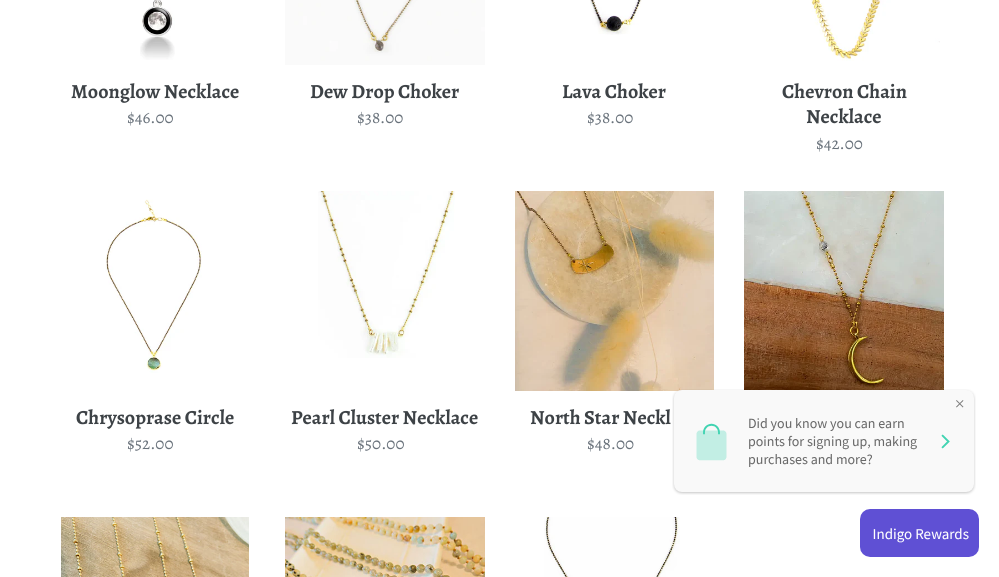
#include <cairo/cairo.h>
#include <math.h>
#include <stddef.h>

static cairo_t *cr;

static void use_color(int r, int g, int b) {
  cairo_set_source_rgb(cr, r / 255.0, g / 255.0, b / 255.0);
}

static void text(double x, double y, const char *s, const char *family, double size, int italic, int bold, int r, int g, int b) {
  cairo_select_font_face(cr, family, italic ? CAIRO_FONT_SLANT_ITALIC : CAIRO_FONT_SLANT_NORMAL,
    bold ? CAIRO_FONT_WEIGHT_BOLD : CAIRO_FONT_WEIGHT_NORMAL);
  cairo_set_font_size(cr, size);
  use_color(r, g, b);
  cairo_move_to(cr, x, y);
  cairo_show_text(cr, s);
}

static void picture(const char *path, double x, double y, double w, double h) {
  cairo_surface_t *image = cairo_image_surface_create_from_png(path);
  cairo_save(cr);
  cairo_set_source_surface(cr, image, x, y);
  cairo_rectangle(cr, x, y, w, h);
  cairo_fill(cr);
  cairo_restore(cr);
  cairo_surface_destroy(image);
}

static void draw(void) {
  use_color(255, 255, 255);
  cairo_paint(cr);
  picture("img_01.png", 140, 0, 35, 60);
  picture("img_02.png", 285, 0, 200, 65);
  picture("img_03.png", 590, 0, 52, 35);
  picture("img_04.png", 811, 0, 129, 61);
  picture("img_05.png", 744, 191, 200, 199);
  picture("img_06.png", 105, 199, 97, 174);
  picture("img_07.png", 318, 191, 137, 167);
  picture("img_08.png", 515, 191, 199, 200);
  picture("img_09.png", 61, 517, 188, 60);
  picture("img_10.png", 285, 517, 200, 60);
  picture("img_11.png", 544, 517, 136, 60);
  picture("img_12.png", 672, 389, 304, 106);
  picture("img_13.png", 860, 509, 119, 48);
  text(71, 98, "Moonglow Necklace", "Alegreya", 20, 0, 1, 61, 66, 70);
  text(127, 123, "$46.00", "Alegreya", 17, 0, 0, 105, 114, 123);
  text(310, 98, "Dew Drop Choker", "Alegreya", 20, 0, 1, 61, 66, 70);
  text(357, 123, "$38.00", "Alegreya", 17, 0, 0, 105, 114, 123);
  text(562, 98, "Lava Choker", "Alegreya", 20, 0, 1, 61, 66, 70);
  text(587, 123, "$38.00", "Alegreya", 17, 0, 0, 105, 114, 123);
  text(782, 98, "Chevron Chain", "Alegreya", 20, 0, 1, 61, 66, 70);
  text(806, 123, "Necklace", "Alegreya", 20, 0, 1, 61, 66, 70);
  text(816, 149, "$42.00", "Alegreya", 17, 0, 0, 105, 114, 123);
  text(76, 424, "Chrysoprase Circle", "Alegreya", 20, 0, 1, 61, 66, 70);
  text(127, 449, "$52.00", "Alegreya", 17, 0, 0, 105, 114, 123);
  text(291, 424, "Pearl Cluster Necklace", "Alegreya", 20, 0, 1, 61, 66, 70);
  text(357, 449, "$50.00", "Alegreya", 17, 0, 0, 105, 114, 123);
  text(530, 424, "North Star Neckl", "Alegreya", 20, 0, 1, 61, 66, 70);
  text(587, 449, "$48.00", "Alegreya", 17, 0, 0, 105, 114, 123);
}

int main(void) {
  cairo_surface_t *surface = cairo_image_surface_create(CAIRO_FORMAT_RGB24, 999, 577);
  cr = cairo_create(surface);
  cairo_font_options_t *options = cairo_font_options_create();
  cairo_font_options_set_hint_metrics(options, CAIRO_HINT_METRICS_OFF);
  cairo_font_options_set_hint_style(options, CAIRO_HINT_STYLE_NONE);
  cairo_set_font_options(cr, options);
  cairo_set_miter_limit(cr, 4);
  draw();
  cairo_surface_write_to_png(surface, "out.png");
  cairo_font_options_destroy(options);
  cairo_destroy(cr);
  cairo_surface_destroy(surface);
  return 0;
}
